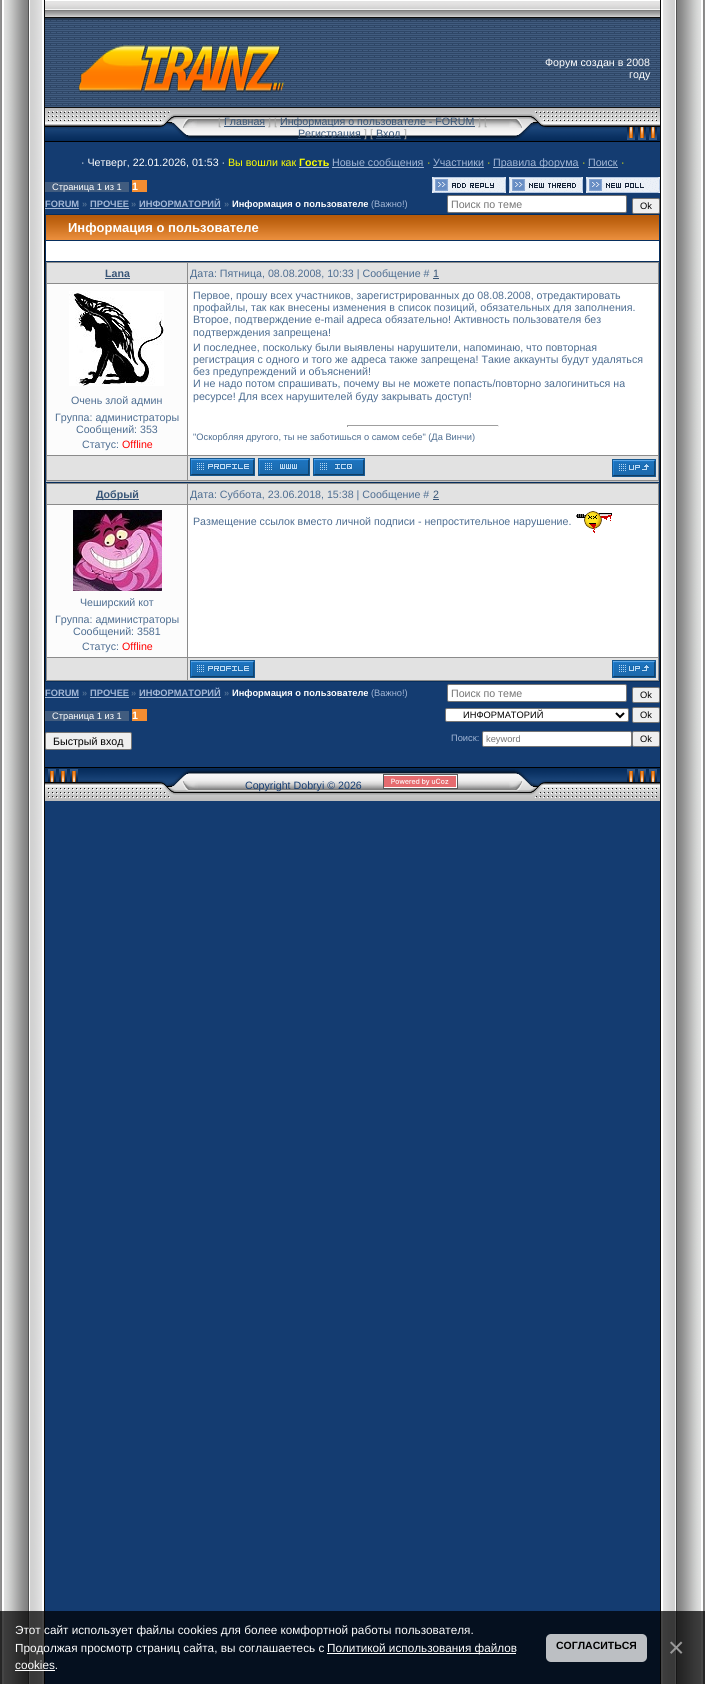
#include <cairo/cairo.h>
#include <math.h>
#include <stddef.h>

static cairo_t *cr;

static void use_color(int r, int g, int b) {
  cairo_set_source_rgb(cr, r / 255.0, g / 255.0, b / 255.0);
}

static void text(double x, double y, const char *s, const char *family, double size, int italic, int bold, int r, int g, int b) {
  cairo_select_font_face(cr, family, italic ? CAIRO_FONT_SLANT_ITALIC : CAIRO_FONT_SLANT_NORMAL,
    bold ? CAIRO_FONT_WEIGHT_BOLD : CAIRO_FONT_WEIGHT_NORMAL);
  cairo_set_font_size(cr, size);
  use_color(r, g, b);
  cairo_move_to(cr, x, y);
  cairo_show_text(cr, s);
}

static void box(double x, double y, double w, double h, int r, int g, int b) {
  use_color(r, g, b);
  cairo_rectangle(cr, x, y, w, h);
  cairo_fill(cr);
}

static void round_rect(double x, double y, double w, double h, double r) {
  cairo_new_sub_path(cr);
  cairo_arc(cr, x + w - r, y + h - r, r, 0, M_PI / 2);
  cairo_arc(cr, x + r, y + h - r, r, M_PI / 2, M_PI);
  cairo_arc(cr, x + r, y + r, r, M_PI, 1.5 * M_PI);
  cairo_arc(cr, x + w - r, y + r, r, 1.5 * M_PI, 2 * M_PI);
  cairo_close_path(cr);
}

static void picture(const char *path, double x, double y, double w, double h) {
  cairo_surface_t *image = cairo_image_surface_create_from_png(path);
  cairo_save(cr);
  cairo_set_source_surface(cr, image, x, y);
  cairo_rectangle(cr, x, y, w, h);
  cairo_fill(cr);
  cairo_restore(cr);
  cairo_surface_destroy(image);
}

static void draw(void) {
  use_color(20, 60, 113);
  cairo_paint(cr);
  picture("img_01.png", 0, 0, 45, 1684);
  picture("img_02.png", 45, 0, 615, 142);
  picture("img_03.png", 78, 45, 206, 48);
  picture("img_04.png", 45, 111, 152, 29);
  box(224, 126, 41, 1, 56, 85, 119);
  box(280, 126, 195, 1, 56, 85, 119);
  box(298, 138, 63, 1, 56, 85, 119);
  box(376, 138, 25, 1, 56, 85, 119);
  picture("img_05.png", 509, 111, 151, 29);
  box(299, 167, 30, 1, 163, 183, 214);
  box(332, 167, 92, 1, 163, 183, 214);
  box(433, 167, 51, 1, 163, 183, 214);
  box(493, 167, 86, 1, 163, 183, 214);
  box(588, 167, 30, 1, 163, 183, 214);
  box(45, 182, 84, 10, 65, 92, 127);
  box(132, 180, 15, 12, 244, 141, 49);
  picture("img_06.png", 432, 177, 74, 16);
  picture("img_07.png", 509, 177, 74, 16);
  picture("img_08.png", 586, 177, 74, 16);
  box(45, 208, 34, 1, 163, 183, 214);
  box(90, 208, 39, 1, 163, 183, 214);
  box(139, 208, 82, 1, 163, 183, 214);
  use_color(255, 255, 255);
  round_rect(447.5, 195.5, 179, 17, 1.5);
  cairo_fill_preserve(cr);
  use_color(118, 118, 118);
  cairo_set_line_width(cr, 1);
  cairo_stroke(cr);
  use_color(239, 239, 239);
  round_rect(632.5, 198.5, 27, 15, 1.5);
  cairo_fill_preserve(cr);
  use_color(118, 118, 118);
  cairo_stroke(cr);
  box(45, 214, 615, 468, 7, 46, 93);
  picture("img_09.png", 46, 215, 613, 25);
  box(46, 241, 613, 20, 255, 255, 255);
  box(46, 481, 613, 1, 192, 192, 192);
  box(46, 262, 613, 219, 139, 139, 139);
  box(47, 263, 140, 20, 226, 226, 226);
  box(105, 278, 25, 1, 56, 85, 119);
  box(188, 263, 470, 20, 226, 226, 226);
  box(433, 278, 6, 1, 56, 85, 119);
  box(47, 284, 140, 171, 252, 252, 252);
  picture("img_10.png", 69, 291, 95, 95);
  box(188, 284, 470, 171, 255, 255, 255);
  box(347, 425, 152, 1, 159, 159, 159);
  box(498, 425, 1, 2, 238, 238, 238);
  box(347, 425, 1, 2, 159, 159, 159);
  box(47, 456, 140, 24, 226, 226, 226);
  box(188, 456, 470, 24, 226, 226, 226);
  picture("img_11.png", 190, 458, 65, 18);
  picture("img_12.png", 258, 458, 52, 18);
  picture("img_13.png", 313, 458, 52, 18);
  picture("img_14.png", 612, 459, 44, 18);
  box(46, 483, 613, 198, 139, 139, 139);
  box(47, 484, 140, 20, 226, 226, 226);
  box(96, 499, 43, 1, 56, 85, 119);
  box(188, 484, 470, 20, 226, 226, 226);
  box(433, 499, 6, 1, 56, 85, 119);
  box(188, 505, 470, 152, 255, 255, 255);
  picture("img_15.png", 576, 511, 36, 22);
  box(47, 505, 140, 152, 252, 252, 252);
  picture("img_16.png", 73, 510, 89, 81);
  box(47, 658, 140, 22, 226, 226, 226);
  box(188, 658, 470, 22, 226, 226, 226);
  picture("img_11.png", 190, 660, 65, 18);
  picture("img_14.png", 612, 660, 44, 18);
  box(45, 697, 34, 1, 163, 183, 214);
  box(90, 697, 39, 1, 163, 183, 214);
  box(139, 697, 82, 1, 163, 183, 214);
  use_color(255, 255, 255);
  round_rect(447.5, 684.5, 179, 17, 1.5);
  cairo_fill_preserve(cr);
  use_color(118, 118, 118);
  cairo_stroke(cr);
  use_color(239, 239, 239);
  round_rect(632.5, 687.5, 27, 15, 1.5);
  cairo_fill_preserve(cr);
  use_color(118, 118, 118);
  cairo_stroke(cr);
  box(45, 711, 84, 10, 65, 92, 127);
  box(132, 709, 15, 12, 244, 141, 49);
  use_color(255, 255, 255);
  round_rect(445.5, 708.5, 183, 13, 1.5);
  cairo_fill_preserve(cr);
  use_color(118, 118, 118);
  cairo_stroke(cr);
  cairo_new_path(cr);
  cairo_move_to(cr, 616, 713);
  cairo_line_to(cr, 620, 717);
  cairo_line_to(cr, 624, 713);
  use_color(0, 0, 0);
  cairo_set_line_width(cr, 2);
  cairo_stroke(cr);
  use_color(239, 239, 239);
  round_rect(632.5, 707.5, 27, 15, 1.5);
  cairo_fill_preserve(cr);
  use_color(118, 118, 118);
  cairo_set_line_width(cr, 1);
  cairo_stroke(cr);
  use_color(239, 239, 239);
  round_rect(45.5, 732.5, 86, 17, 1.5);
  cairo_fill_preserve(cr);
  use_color(118, 118, 118);
  cairo_stroke(cr);
  use_color(255, 255, 255);
  round_rect(482.5, 731.5, 149, 15, 1.5);
  cairo_fill_preserve(cr);
  use_color(118, 118, 118);
  cairo_stroke(cr);
  use_color(239, 239, 239);
  round_rect(632.5, 731.5, 27, 15, 1.5);
  cairo_fill_preserve(cr);
  use_color(118, 118, 118);
  cairo_stroke(cr);
  picture("img_17.png", 45, 767, 615, 34);
  picture("img_18.png", 45, 769, 153, 29);
  picture("img_19.png", 383, 774, 75, 15);
  picture("img_20.png", 509, 769, 151, 29);
  picture("img_21.png", 660, 0, 45, 1684);
  cairo_set_source_rgba(cr, 0, 0, 0, 0.73);
  cairo_rectangle(cr, 0, 1611, 705, 73);
  cairo_fill(cr);
  box(327, 1653, 189, 1, 255, 255, 255);
  box(15, 1670, 40, 1, 255, 255, 255);
  use_color(188, 191, 195);
  round_rect(546, 1634, 101, 28, 5);
  cairo_fill(cr);
  text(545, 66, "Форум создан в 2008", "Liberation Sans", 10.65, 0, 0, 255, 255, 255);
  text(629, 78, "году", "Liberation Sans", 10.65, 0, 0, 255, 255, 255);
  text(218, 125, "[", "Liberation Sans", 10.65, 0, 0, 160, 161, 160);
  text(224, 125, "Главная", "Liberation Sans", 10.65, 0, 0, 56, 85, 119);
  text(268, 125, "] [", "Liberation Sans", 10.65, 0, 0, 160, 161, 160);
  text(280, 125, "Информация о пользователе - FORUM", "Liberation Sans", 10.65, 0, 0, 56, 85, 119);
  text(478, 125, "] [", "Liberation Sans", 10.65, 0, 0, 160, 161, 160);
  text(298, 137, "Регистрация", "Liberation Sans", 10.65, 0, 0, 56, 85, 119);
  text(364, 137, "] [", "Liberation Sans", 10.65, 0, 0, 160, 161, 160);
  text(376, 137, "Вход", "Liberation Sans", 10.65, 0, 0, 56, 85, 119);
  text(404, 137, "]", "Liberation Sans", 10.65, 0, 0, 160, 161, 160);
  text(81, 166, "· Четверг, 22.01.2026, 01:53 ·", "Liberation Sans", 10.65, 0, 0, 255, 255, 255);
  text(228, 166, "Вы вошли как", "Liberation Sans", 10.65, 0, 0, 255, 255, 0);
  text(299, 166, "Гость", "Liberation Sans", 10.65, 0, 1, 255, 255, 0);
  text(332, 166, "Новые сообщения", "Liberation Sans", 10.65, 0, 0, 163, 183, 214);
  text(427, 166, "·", "Liberation Sans", 10.65, 0, 0, 255, 255, 0);
  text(433, 166, "Участники", "Liberation Sans", 10.65, 0, 0, 163, 183, 214);
  text(487, 166, "·", "Liberation Sans", 10.65, 0, 0, 255, 255, 0);
  text(493, 166, "Правила форума", "Liberation Sans", 10.65, 0, 0, 163, 183, 214);
  text(582, 166, "·", "Liberation Sans", 10.65, 0, 0, 255, 255, 0);
  text(588, 166, "Поиск", "Liberation Sans", 10.65, 0, 0, 163, 183, 214);
  text(621, 166, "·", "Liberation Sans", 10.65, 0, 0, 255, 255, 0);
  text(52, 190, "Страница 1 из 1", "Liberation Sans", 9.3, 0, 0, 255, 255, 255);
  text(132, 190, "1", "Liberation Sans", 10.65, 0, 1, 255, 255, 255);
  text(45, 207, "FORUM", "Liberation Sans", 9.3, 0, 1, 163, 183, 214);
  text(82, 207, "»", "Liberation Sans", 9.3, 0, 1, 77, 109, 145);
  text(90, 207, "ПРОЧЕЕ", "Liberation Sans", 9.3, 0, 1, 163, 183, 214);
  text(131, 207, "»", "Liberation Sans", 9.3, 0, 1, 77, 109, 145);
  text(139, 207, "ИНФОРМАТОРИЙ", "Liberation Sans", 9.3, 0, 1, 163, 183, 214);
  text(224, 207, "»", "Liberation Sans", 9.3, 0, 1, 77, 109, 145);
  text(232, 207, "Информация о пользователе", "Liberation Sans", 9.3, 0, 1, 255, 255, 255);
  text(371, 207, "(Важно!)", "Liberation Sans", 9.3, 0, 0, 163, 183, 214);
  text(451, 208, "Поиск по теме", "Liberation Sans", 10.65, 0, 0, 117, 117, 117);
  text(640, 209, "Ok", "Liberation Sans", 9.3, 0, 0, 0, 0, 0);
  text(68, 232, "Информация о пользователе", "Liberation Sans", 13, 0, 1, 255, 255, 255);
  text(105, 277, "Lana", "Liberation Sans", 10.65, 0, 1, 56, 85, 119);
  text(190, 277, "Дата: Пятница, 08.08.2008, 10:33 | Сообщение #", "Liberation Sans", 10.65, 0, 0, 77, 109, 145);
  text(433, 277, "1", "Liberation Sans", 10.65, 0, 0, 56, 85, 119);
  text(71, 404, "Очень злой админ", "Liberation Sans", 10.65, 0, 0, 77, 109, 145);
  text(55, 421, "Группа: администраторы", "Liberation Sans", 10.65, 0, 0, 77, 109, 145);
  text(76, 433, "Сообщений: 353", "Liberation Sans", 10.65, 0, 0, 77, 109, 145);
  text(82, 448, "Статус:", "Liberation Sans", 10.65, 0, 0, 77, 109, 145);
  text(122, 448, "Offline", "Liberation Sans", 10.65, 0, 0, 255, 0, 0);
  text(193, 299, "Первое, прошу всех участников, зарегистрированных до 08.08.2008, отредактировать", "Liberation Sans", 10.65, 0, 0, 77, 109, 145);
  text(193, 311, "профайлы, так как внесены изменения в список позиций, обязательных для заполнения.", "Liberation Sans", 10.65, 0, 0, 77, 109, 145);
  text(193, 323, "Второе, подтверждение e-mail адреса обязательно! Активность пользователя без", "Liberation Sans", 10.65, 0, 0, 77, 109, 145);
  text(193, 336, "подтверждения запрещена!", "Liberation Sans", 10.65, 0, 0, 77, 109, 145);
  text(193, 351, "И последнее, поскольку были выявлены нарушители, напоминаю, что повторная", "Liberation Sans", 10.65, 0, 0, 77, 109, 145);
  text(193, 363, "регистрация с одного и того же адреса также запрещена! Такие аккаунты будут удаляться", "Liberation Sans", 10.65, 0, 0, 77, 109, 145);
  text(193, 375, "без предупреждений и объяснений!", "Liberation Sans", 10.65, 0, 0, 77, 109, 145);
  text(193, 387, "И не надо потом спрашивать, почему вы не можете попасть/повторно залогиниться на", "Liberation Sans", 10.65, 0, 0, 77, 109, 145);
  text(193, 400, "ресурсе! Для всех нарушителей буду закрывать доступ!", "Liberation Sans", 10.65, 0, 0, 77, 109, 145);
  text(193, 440, "\"Оскорбляя другого, ты не заботишься о самом себе\" (Да Винчи)", "Liberation Sans", 9.3, 0, 0, 77, 109, 145);
  text(96, 498, "Добрый", "Liberation Sans", 10.65, 0, 1, 56, 85, 119);
  text(190, 498, "Дата: Суббота, 23.06.2018, 15:38 | Сообщение #", "Liberation Sans", 10.65, 0, 0, 77, 109, 145);
  text(433, 498, "2", "Liberation Sans", 10.65, 0, 0, 56, 85, 119);
  text(193, 525, "Размещение ссылок вместо личной подписи - непростительное нарушение.", "Liberation Sans", 10.65, 0, 0, 77, 109, 145);
  text(80, 606, "Чеширский кот", "Liberation Sans", 10.65, 0, 0, 77, 109, 145);
  text(55, 623, "Группа: администраторы", "Liberation Sans", 10.65, 0, 0, 77, 109, 145);
  text(73, 635, "Сообщений: 3581", "Liberation Sans", 10.65, 0, 0, 77, 109, 145);
  text(82, 650, "Статус:", "Liberation Sans", 10.65, 0, 0, 77, 109, 145);
  text(122, 650, "Offline", "Liberation Sans", 10.65, 0, 0, 255, 0, 0);
  text(45, 696, "FORUM", "Liberation Sans", 9.3, 0, 1, 163, 183, 214);
  text(82, 696, "»", "Liberation Sans", 9.3, 0, 1, 77, 109, 145);
  text(90, 696, "ПРОЧЕЕ", "Liberation Sans", 9.3, 0, 1, 163, 183, 214);
  text(131, 696, "»", "Liberation Sans", 9.3, 0, 1, 77, 109, 145);
  text(139, 696, "ИНФОРМАТОРИЙ", "Liberation Sans", 9.3, 0, 1, 163, 183, 214);
  text(224, 696, "»", "Liberation Sans", 9.3, 0, 1, 77, 109, 145);
  text(232, 696, "Информация о пользователе", "Liberation Sans", 9.3, 0, 1, 255, 255, 255);
  text(371, 696, "(Важно!)", "Liberation Sans", 9.3, 0, 0, 163, 183, 214);
  text(451, 697, "Поиск по теме", "Liberation Sans", 10.65, 0, 0, 117, 117, 117);
  text(640, 698, "Ok", "Liberation Sans", 9.3, 0, 0, 0, 0, 0);
  text(52, 719, "Страница 1 из 1", "Liberation Sans", 9.3, 0, 0, 255, 255, 255);
  text(132, 719, "1", "Liberation Sans", 10.65, 0, 1, 255, 255, 255);
  text(463, 718, "ИНФОРМАТОРИЙ", "Liberation Sans", 9.3, 0, 0, 0, 0, 0);
  text(640, 718, "Ok", "Liberation Sans", 9.3, 0, 0, 0, 0, 0);
  text(53, 745, "Быстрый вход", "Liberation Sans", 10.65, 0, 0, 0, 0, 0);
  text(451, 741, "Поиск:", "Liberation Sans", 9.3, 0, 0, 163, 183, 214);
  text(486, 742, "keyword", "Liberation Sans", 9.3, 0, 0, 117, 117, 117);
  text(640, 742, "Ok", "Liberation Sans", 9.3, 0, 0, 0, 0, 0);
  text(245, 789, "Copyright Dobryi © 2026", "Liberation Sans", 10.65, 0, 0, 20, 60, 113);
  text(15, 1634, "Этот сайт использует файлы cookies для более комфортной работы пользователя.", "Liberation Sans", 11.75, 0, 0, 255, 255, 255);
  text(15, 1652, "Продолжая просмотр страниц сайта, вы соглашаетесь с", "Liberation Sans", 11.75, 0, 0, 255, 255, 255);
  text(327, 1652, "Политикой использования файлов", "Liberation Sans", 11.75, 0, 0, 255, 255, 255);
  text(15, 1669, "cookies.", "Liberation Sans", 11.75, 0, 0, 255, 255, 255);
  text(556, 1649, "СОГЛАСИТЬСЯ", "Liberation Sans", 10.5, 0, 1, 0, 0, 0);
  text(668, 1657, "×", "Liberation Sans", 28, 0, 0, 153, 153, 153);
}

int main(void) {
  cairo_surface_t *surface = cairo_image_surface_create(CAIRO_FORMAT_RGB24, 705, 1684);
  cr = cairo_create(surface);
  cairo_font_options_t *options = cairo_font_options_create();
  cairo_font_options_set_hint_metrics(options, CAIRO_HINT_METRICS_OFF);
  cairo_font_options_set_hint_style(options, CAIRO_HINT_STYLE_NONE);
  cairo_set_font_options(cr, options);
  cairo_set_miter_limit(cr, 4);
  draw();
  cairo_surface_write_to_png(surface, "out.png");
  cairo_font_options_destroy(options);
  cairo_destroy(cr);
  cairo_surface_destroy(surface);
  return 0;
}
